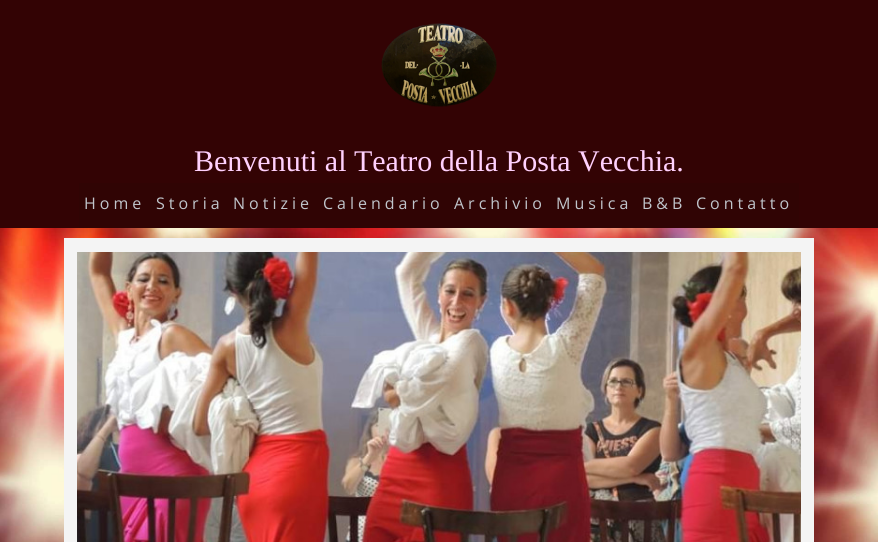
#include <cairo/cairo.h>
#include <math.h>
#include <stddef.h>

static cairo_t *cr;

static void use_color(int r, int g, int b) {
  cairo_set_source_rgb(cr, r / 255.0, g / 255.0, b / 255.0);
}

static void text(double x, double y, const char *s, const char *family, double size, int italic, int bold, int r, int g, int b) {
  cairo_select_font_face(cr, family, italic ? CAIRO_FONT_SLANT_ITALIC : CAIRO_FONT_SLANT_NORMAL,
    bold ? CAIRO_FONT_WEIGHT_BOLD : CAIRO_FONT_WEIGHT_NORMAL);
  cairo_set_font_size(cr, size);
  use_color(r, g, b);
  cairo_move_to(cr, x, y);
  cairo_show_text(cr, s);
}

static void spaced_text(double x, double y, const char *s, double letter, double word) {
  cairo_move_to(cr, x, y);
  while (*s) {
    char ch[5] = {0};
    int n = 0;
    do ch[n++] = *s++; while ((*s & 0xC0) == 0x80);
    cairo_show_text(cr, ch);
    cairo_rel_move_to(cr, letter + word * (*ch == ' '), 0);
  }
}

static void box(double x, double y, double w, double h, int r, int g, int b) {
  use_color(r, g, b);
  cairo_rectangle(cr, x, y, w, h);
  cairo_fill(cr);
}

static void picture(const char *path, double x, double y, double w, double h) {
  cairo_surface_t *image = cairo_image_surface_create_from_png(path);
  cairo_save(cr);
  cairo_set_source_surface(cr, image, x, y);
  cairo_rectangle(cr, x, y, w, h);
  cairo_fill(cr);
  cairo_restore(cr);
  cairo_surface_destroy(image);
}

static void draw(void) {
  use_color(255, 255, 255);
  cairo_paint(cr);
  box(0, 0, 878, 228, 51, 3, 4);
  picture("img_01.png", 381, 23, 116, 84);
  box(79, 183, 720, 45, 48, 4, 4);
  picture("img_02.png", 0, 228, 878, 314);
  box(64, 238, 750, 304, 244, 244, 244);
  picture("img_03.png", 77, 252, 724, 290);
  text(194, 171, "Benvenuti al Teatro della Posta Vecchia.", "Liberation Serif", 30, 0, 0, 255, 209, 253);
  cairo_select_font_face(cr, "Open Sans", CAIRO_FONT_SLANT_NORMAL, CAIRO_FONT_WEIGHT_NORMAL);
  cairo_set_font_size(cr, 16);
  use_color(192, 197, 203);
  spaced_text(84, 209, "Home", 4, 0);
  spaced_text(156, 209, "Storia", 4, 0);
  spaced_text(233, 209, "Notizie", 4, 0);
  spaced_text(323, 209, "Calendario", 4, 0);
  spaced_text(454, 209, "Archivio", 4, 0);
  spaced_text(556, 209, "Musica", 4, 0);
  spaced_text(642, 209, "B&B", 4, 0);
  spaced_text(696, 209, "Contatto", 4, 0);
}

int main(void) {
  cairo_surface_t *surface = cairo_image_surface_create(CAIRO_FORMAT_RGB24, 878, 542);
  cr = cairo_create(surface);
  cairo_font_options_t *options = cairo_font_options_create();
  cairo_font_options_set_hint_metrics(options, CAIRO_HINT_METRICS_OFF);
  cairo_font_options_set_hint_style(options, CAIRO_HINT_STYLE_NONE);
  cairo_set_font_options(cr, options);
  cairo_set_miter_limit(cr, 4);
  draw();
  cairo_surface_write_to_png(surface, "out.png");
  cairo_font_options_destroy(options);
  cairo_destroy(cr);
  cairo_surface_destroy(surface);
  return 0;
}
